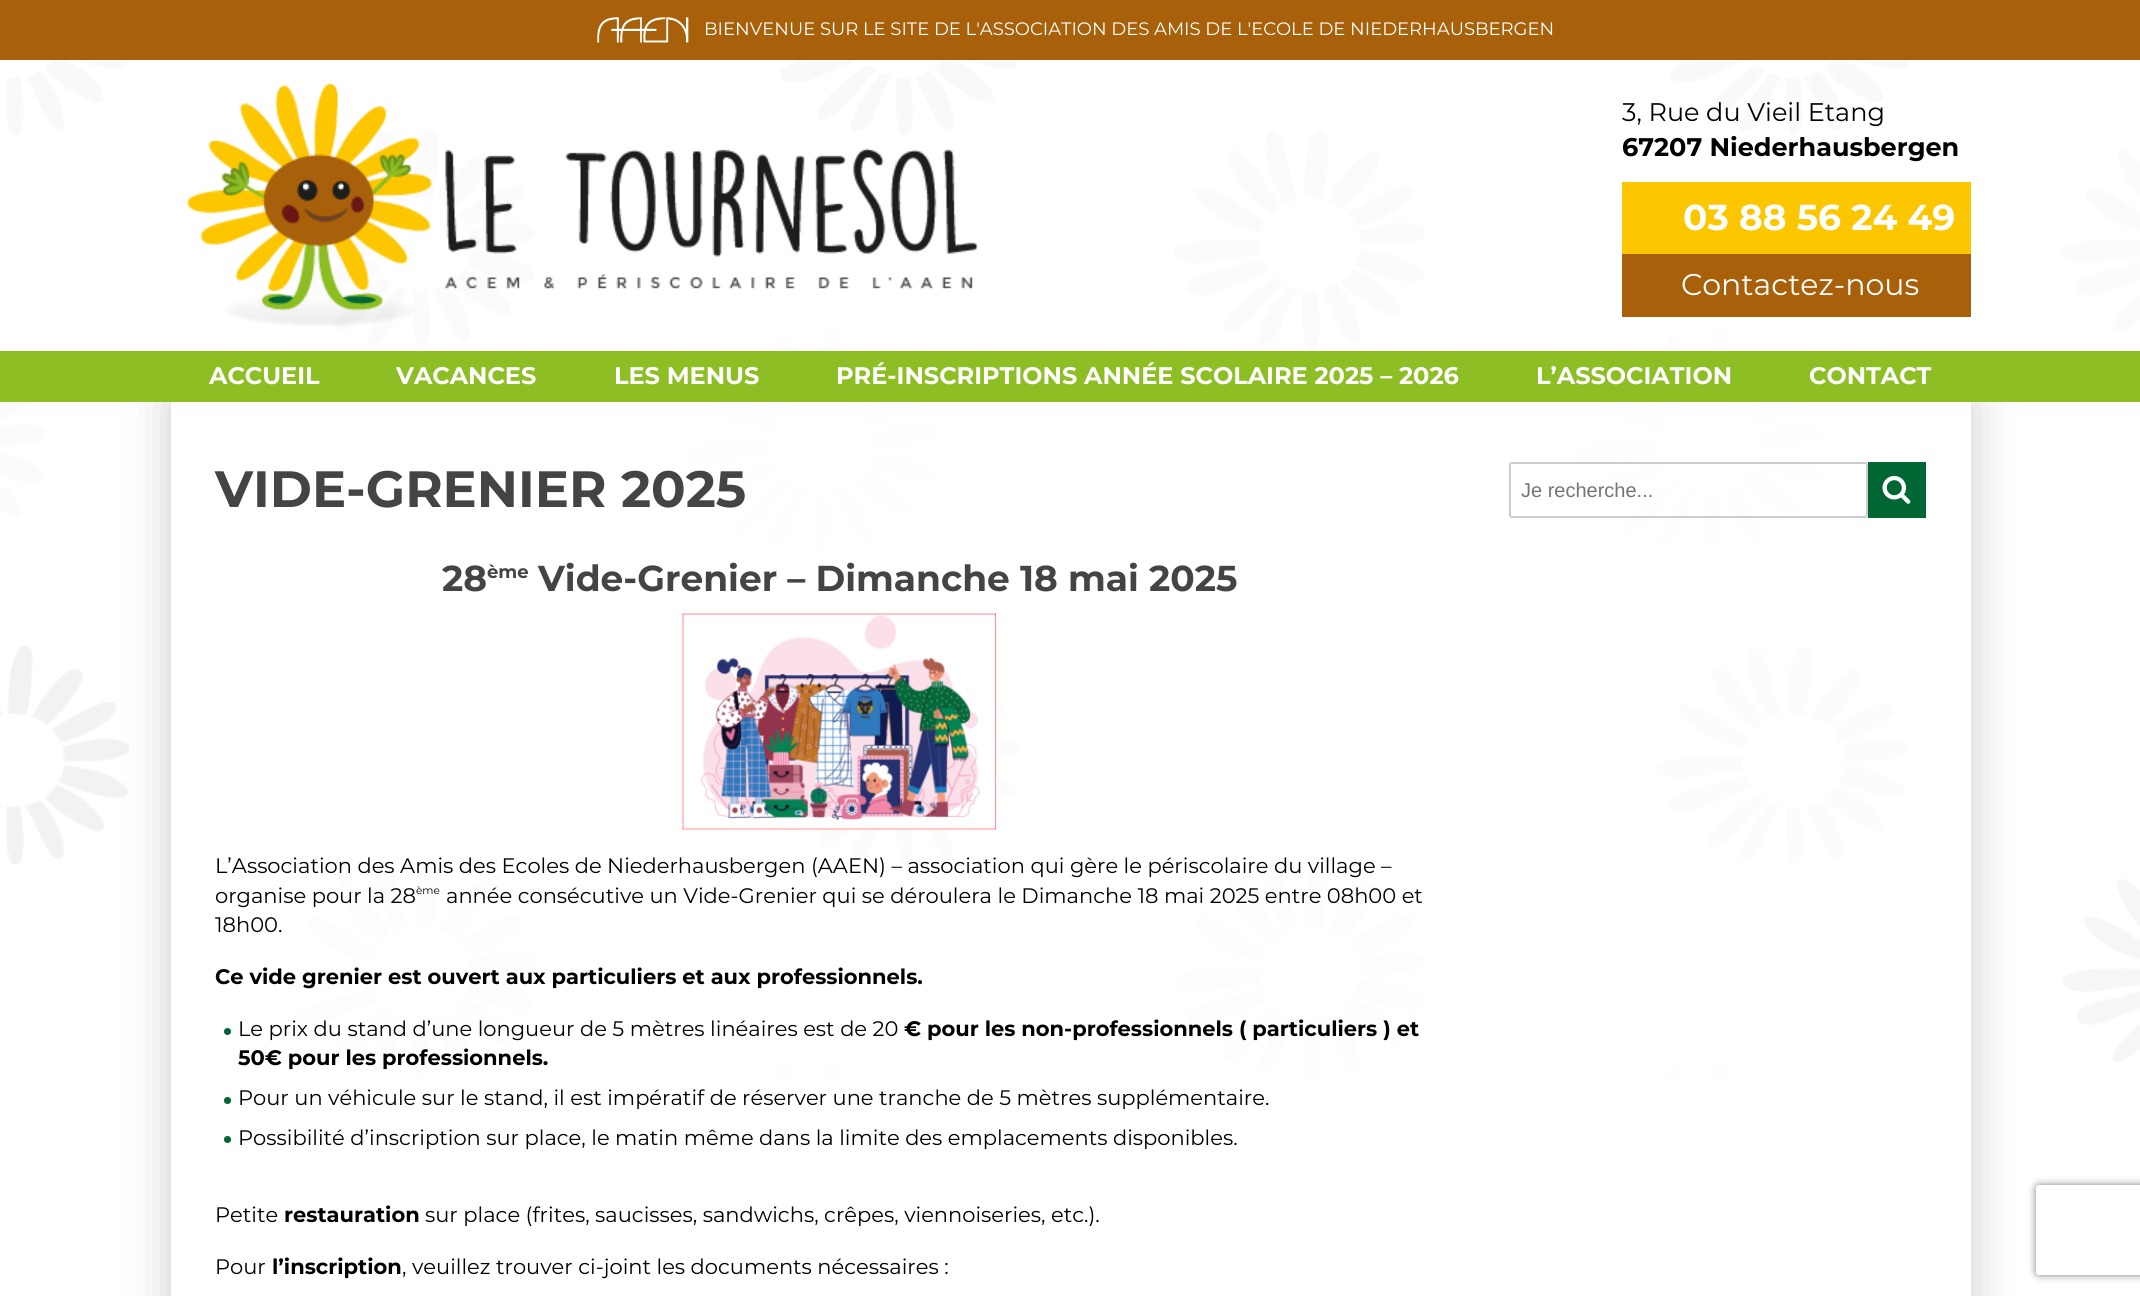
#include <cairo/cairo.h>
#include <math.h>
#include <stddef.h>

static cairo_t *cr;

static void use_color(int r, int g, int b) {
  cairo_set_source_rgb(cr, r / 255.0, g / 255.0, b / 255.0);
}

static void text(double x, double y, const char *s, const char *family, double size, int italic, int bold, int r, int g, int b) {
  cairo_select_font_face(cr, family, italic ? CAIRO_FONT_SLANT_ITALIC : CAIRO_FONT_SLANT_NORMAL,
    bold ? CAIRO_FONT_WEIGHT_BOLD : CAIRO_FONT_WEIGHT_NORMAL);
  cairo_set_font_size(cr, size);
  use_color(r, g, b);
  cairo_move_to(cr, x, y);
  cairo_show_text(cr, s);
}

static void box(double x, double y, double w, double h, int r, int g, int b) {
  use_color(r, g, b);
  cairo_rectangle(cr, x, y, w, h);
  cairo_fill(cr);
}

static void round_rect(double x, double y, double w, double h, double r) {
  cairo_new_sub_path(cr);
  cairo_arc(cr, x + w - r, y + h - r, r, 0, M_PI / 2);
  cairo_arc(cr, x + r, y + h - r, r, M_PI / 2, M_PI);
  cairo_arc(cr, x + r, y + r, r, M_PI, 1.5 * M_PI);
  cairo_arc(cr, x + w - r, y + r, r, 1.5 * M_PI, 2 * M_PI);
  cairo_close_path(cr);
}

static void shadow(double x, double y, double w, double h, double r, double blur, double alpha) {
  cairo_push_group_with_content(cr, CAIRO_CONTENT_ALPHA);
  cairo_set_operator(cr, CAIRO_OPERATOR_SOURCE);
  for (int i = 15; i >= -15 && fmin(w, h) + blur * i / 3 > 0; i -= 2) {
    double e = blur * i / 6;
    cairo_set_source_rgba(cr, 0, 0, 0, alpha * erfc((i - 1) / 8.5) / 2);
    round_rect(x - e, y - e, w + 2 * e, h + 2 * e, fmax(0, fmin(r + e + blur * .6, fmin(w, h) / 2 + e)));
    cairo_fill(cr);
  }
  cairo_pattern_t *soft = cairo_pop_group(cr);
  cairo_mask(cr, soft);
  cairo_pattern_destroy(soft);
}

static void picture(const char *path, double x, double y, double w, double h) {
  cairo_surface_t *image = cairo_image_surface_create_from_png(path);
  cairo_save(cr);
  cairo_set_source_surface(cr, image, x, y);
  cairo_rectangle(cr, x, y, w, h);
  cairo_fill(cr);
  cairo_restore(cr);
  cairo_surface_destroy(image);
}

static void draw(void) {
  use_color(255, 255, 255);
  cairo_paint(cr);
  picture("img_01.png", 0, 60, 2140, 1018);
  box(0, 0, 2140, 60, 168, 96, 10);
  picture("img_02.png", 597, 17, 92, 26);
  cairo_set_source_rgba(cr, 1, 1, 1, 0.5);
  cairo_rectangle(cr, 0, 60, 2140, 289);
  cairo_fill(cr);
  picture("img_03.png", 187, 83, 791, 243);
  box(1622, 182, 349, 72, 252, 199, 0);
  box(1622, 254, 349, 63, 168, 96, 10);
  cairo_save(cr);
  cairo_set_fill_rule(cr, CAIRO_FILL_RULE_EVEN_ODD);
  cairo_new_path(cr);
  cairo_move_to(cr, 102, 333);
  cairo_line_to(cr, 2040, 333);
  cairo_line_to(cr, 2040, 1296);
  cairo_line_to(cr, 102, 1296);
  cairo_close_path(cr);
  cairo_move_to(cr, 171, 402);
  cairo_line_to(cr, 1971, 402);
  cairo_line_to(cr, 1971, 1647);
  cairo_line_to(cr, 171, 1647);
  cairo_close_path(cr);
  cairo_clip(cr);
  use_color(204, 204, 204);
  shadow(171, 402, 1800, 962, 0, 22.5, 1);
  cairo_restore(cr);
  box(0, 351, 2140, 51, 141, 190, 35);
  cairo_set_source_rgba(cr, 1, 1, 1, 0.8);
  cairo_rectangle(cr, 283, 402, 1626, 676);
  cairo_fill(cr);
  picture("img_04.png", 682, 613, 314, 217);
  use_color(0, 102, 51);
  cairo_arc(cr, 227.5, 1031.5, 3.5, 0, 2 * M_PI);
  cairo_fill(cr);
  cairo_arc(cr, 227.5, 1100.5, 3.5, 0, 2 * M_PI);
  cairo_fill(cr);
  cairo_arc(cr, 227.5, 1139.5, 3.5, 0, 2 * M_PI);
  cairo_fill(cr);
  round_rect(1510, 463, 357, 54, 2);
  use_color(204, 204, 204);
  cairo_stroke(cr);
  box(1868, 462, 58, 56, 0, 102, 51);
  picture("img_05.png", 1882, 475, 29, 29);
  cairo_save(cr);
  cairo_set_fill_rule(cr, CAIRO_FILL_RULE_EVEN_ODD);
  cairo_new_path(cr);
  cairo_move_to(cr, 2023, 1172);
  cairo_line_to(cr, 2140, 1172);
  cairo_line_to(cr, 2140, 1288);
  cairo_line_to(cr, 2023, 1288);
  cairo_close_path(cr);
  cairo_move_to(cr, 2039, 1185);
  cairo_line_to(cr, 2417, 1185);
  cairo_curve_to(cr, 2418.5, 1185, 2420, 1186.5, 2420, 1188);
  cairo_line_to(cr, 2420, 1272);
  cairo_curve_to(cr, 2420, 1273.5, 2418.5, 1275, 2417, 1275);
  cairo_line_to(cr, 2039, 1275);
  cairo_curve_to(cr, 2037.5, 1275, 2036, 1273.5, 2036, 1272);
  cairo_line_to(cr, 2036, 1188);
  cairo_curve_to(cr, 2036, 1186.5, 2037.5, 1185, 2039, 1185);
  cairo_close_path(cr);
  cairo_clip(cr);
  use_color(128, 128, 128);
  shadow(2036, 1185, 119, 90, 3, 4, 1);
  cairo_restore(cr);
  text(704, 35, "BIENVENUE SUR LE SITE DE L'ASSOCIATION DES AMIS DE L'ECOLE DE NIEDERHAUSBERGEN", "Montserrat", 18, 0, 0, 255, 255, 255);
  text(1622, 121, "3, Rue du Vieil Etang", "Montserrat", 25.5, 0, 0, 0, 0, 0);
  text(1622, 156, "67207 Niederhausbergen", "Montserrat", 25.5, 0, 1, 0, 0, 0);
  text(1683, 230, "03 88 56 24 49", "Montserrat", 36, 0, 1, 255, 255, 255);
  text(1681, 295, "Contactez-nous", "Montserrat", 30, 0, 0, 255, 255, 255);
  text(209, 384, "ACCUEIL", "Montserrat", 24, 0, 1, 255, 255, 255);
  text(396, 384, "VACANCES", "Montserrat", 24, 0, 1, 255, 255, 255);
  text(614, 384, "LES MENUS", "Montserrat", 24, 0, 1, 255, 255, 255);
  text(836, 384, "PRÉ-INSCRIPTIONS ANNÉE SCOLAIRE 2025 – 2026", "Montserrat", 24, 0, 1, 255, 255, 255);
  text(1536, 384, "L’ASSOCIATION", "Montserrat", 24, 0, 1, 255, 255, 255);
  text(1809, 384, "CONTACT", "Montserrat", 24, 0, 1, 255, 255, 255);
  text(215, 507, "VIDE-GRENIER 2025", "Montserrat", 51, 0, 1, 68, 68, 68);
  text(442, 591, "28", "Montserrat", 36, 0, 1, 68, 68, 68);
  text(487, 578, "ème", "Montserrat", 18, 0, 1, 68, 68, 68);
  text(538, 591, "Vide-Grenier – Dimanche 18 mai 2025", "Montserrat", 36, 0, 1, 68, 68, 68);
  text(215, 873, "L’Association des Amis des Ecoles de Niederhausbergen (AAEN) – association qui gère le périscolaire du village –", "Montserrat", 21, 0, 0, 0, 0, 0);
  text(215, 903, "organise pour la 28", "Montserrat", 21, 0, 0, 0, 0, 0);
  text(416, 894, "ème", "Montserrat", 10.5, 0, 0, 0, 0, 0);
  text(446, 903, "année consécutive un Vide-Grenier qui se déroulera le Dimanche 18 mai 2025 entre 08h00 et", "Montserrat", 21, 0, 0, 0, 0, 0);
  text(215, 932, "18h00.", "Montserrat", 21, 0, 0, 0, 0, 0);
  text(215, 984, "Ce vide grenier est ouvert aux particuliers et aux professionnels.", "Montserrat", 21, 0, 1, 0, 0, 0);
  text(238, 1036, "Le prix du stand d’une longueur de 5 mètres linéaires est de 20", "Montserrat", 21, 0, 0, 0, 0, 0);
  text(904, 1036, "€ pour les non-professionnels ( particuliers ) et", "Montserrat", 21, 0, 1, 0, 0, 0);
  text(238, 1065, "50€ pour les professionnels.", "Montserrat", 21, 0, 1, 0, 0, 0);
  text(238, 1105, "Pour un véhicule sur le stand, il est impératif de réserver une tranche de 5 mètres supplémentaire.", "Montserrat", 21, 0, 0, 0, 0, 0);
  text(238, 1145, "Possibilité d’inscription sur place, le matin même dans la limite des emplacements disponibles.", "Montserrat", 21, 0, 0, 0, 0, 0);
  text(215, 1222, "Petite", "Montserrat", 21, 0, 0, 0, 0, 0);
  text(284, 1222, "restauration", "Montserrat", 21, 0, 1, 0, 0, 0);
  text(425, 1222, "sur place (frites, saucisses, sandwichs, crêpes, viennoiseries, etc.).", "Montserrat", 21, 0, 0, 0, 0, 0);
  text(215, 1274, "Pour", "Montserrat", 21, 0, 0, 0, 0, 0);
  text(272, 1274, "l’inscription", "Montserrat", 21, 0, 1, 0, 0, 0);
  text(402, 1274, ", veuillez trouver ci-joint les documents nécessaires :", "Montserrat", 21, 0, 0, 0, 0, 0);
  text(1521, 497, "Je recherche...", "Liberation Sans", 20, 0, 0, 117, 117, 117);
}

int main(void) {
  cairo_surface_t *surface = cairo_image_surface_create(CAIRO_FORMAT_RGB24, 2140, 1296);
  cr = cairo_create(surface);
  cairo_font_options_t *options = cairo_font_options_create();
  cairo_font_options_set_hint_metrics(options, CAIRO_HINT_METRICS_OFF);
  cairo_font_options_set_hint_style(options, CAIRO_HINT_STYLE_NONE);
  cairo_set_font_options(cr, options);
  cairo_set_miter_limit(cr, 4);
  draw();
  cairo_surface_write_to_png(surface, "out.png");
  cairo_font_options_destroy(options);
  cairo_destroy(cr);
  cairo_surface_destroy(surface);
  return 0;
}
